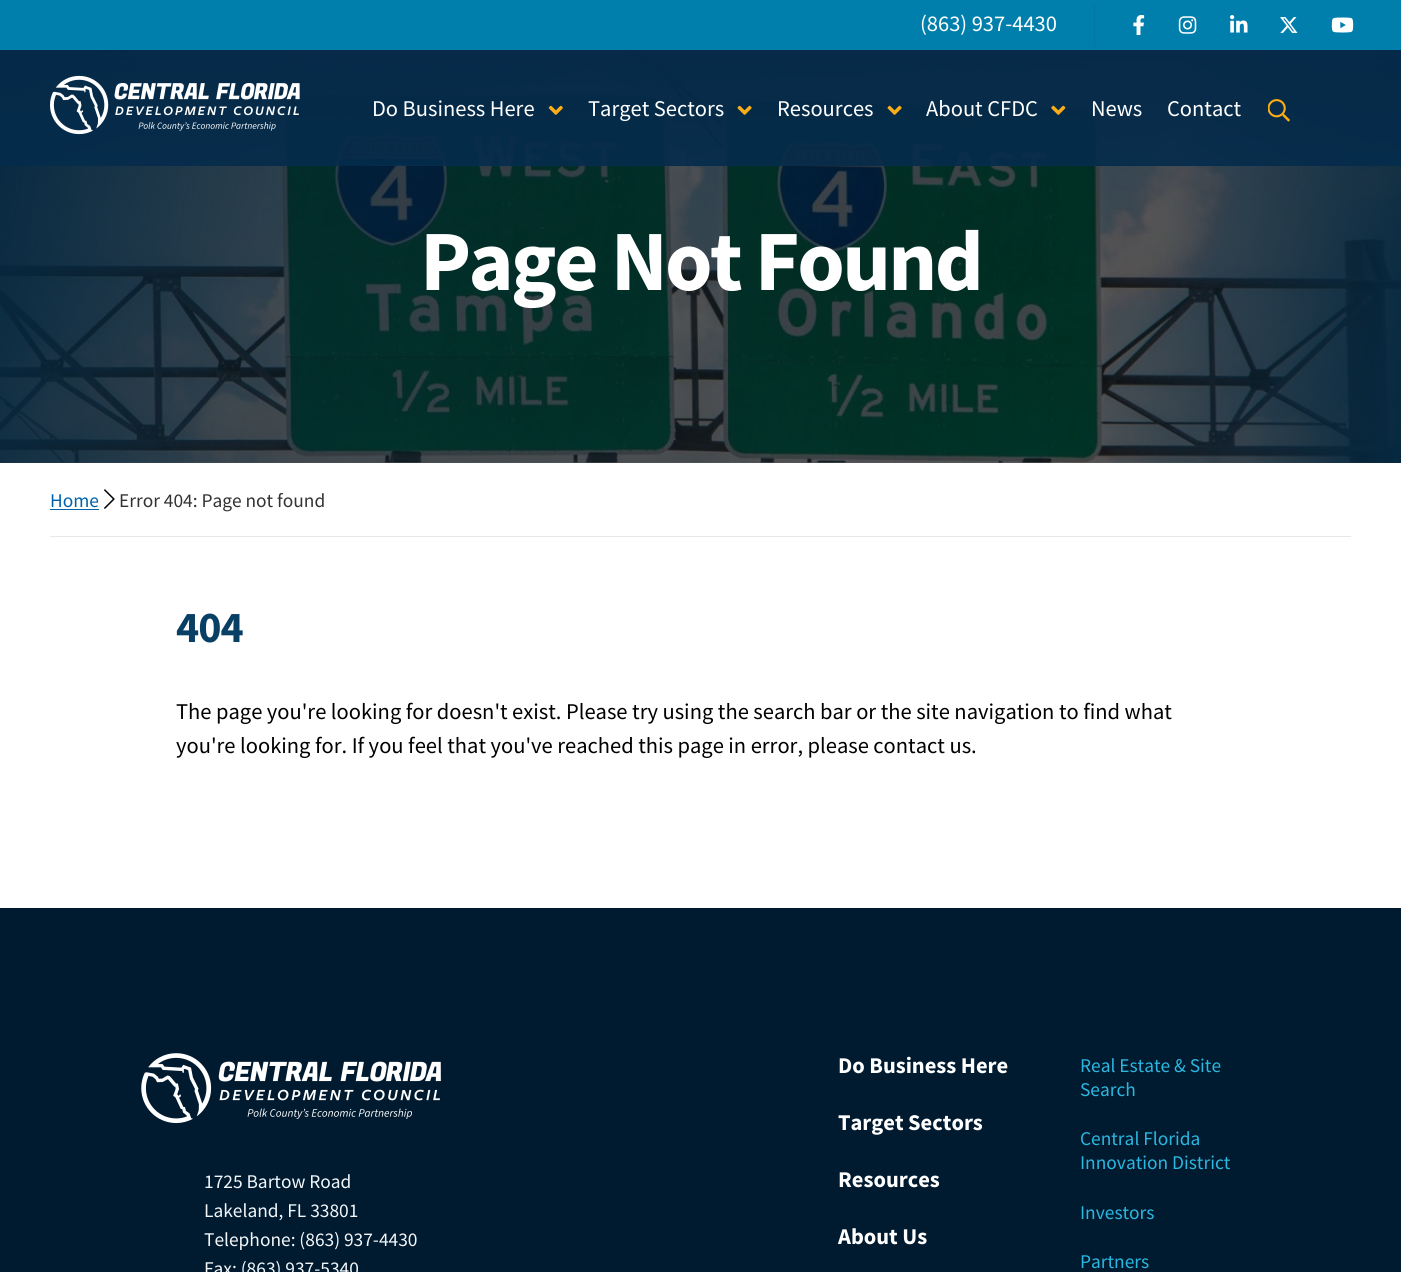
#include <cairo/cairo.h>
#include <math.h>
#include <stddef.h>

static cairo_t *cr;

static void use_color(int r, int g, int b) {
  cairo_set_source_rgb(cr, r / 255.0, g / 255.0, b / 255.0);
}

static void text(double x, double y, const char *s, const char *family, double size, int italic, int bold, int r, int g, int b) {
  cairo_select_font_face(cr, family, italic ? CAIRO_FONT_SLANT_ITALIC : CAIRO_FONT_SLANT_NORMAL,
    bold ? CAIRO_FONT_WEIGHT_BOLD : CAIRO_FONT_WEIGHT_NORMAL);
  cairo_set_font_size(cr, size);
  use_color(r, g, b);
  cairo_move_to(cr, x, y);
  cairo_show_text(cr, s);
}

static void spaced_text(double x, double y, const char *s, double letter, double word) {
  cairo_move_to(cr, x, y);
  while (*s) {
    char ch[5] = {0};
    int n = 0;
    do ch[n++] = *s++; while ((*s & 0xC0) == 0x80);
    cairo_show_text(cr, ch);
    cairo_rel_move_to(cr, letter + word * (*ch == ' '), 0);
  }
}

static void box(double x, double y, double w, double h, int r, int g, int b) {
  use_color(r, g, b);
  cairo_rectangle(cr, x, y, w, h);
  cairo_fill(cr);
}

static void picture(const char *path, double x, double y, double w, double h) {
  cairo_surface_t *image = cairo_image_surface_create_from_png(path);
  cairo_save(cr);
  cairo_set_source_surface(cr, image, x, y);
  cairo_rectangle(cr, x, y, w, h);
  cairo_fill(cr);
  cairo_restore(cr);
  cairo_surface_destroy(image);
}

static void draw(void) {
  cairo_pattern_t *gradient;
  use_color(255, 255, 255);
  cairo_paint(cr);
  box(0, 462, 1400, 1, 153, 153, 153);
  box(0, 0, 1401, 50, 0, 127, 173);
  box(1094, 4, 1, 42, 0, 119, 163);
  picture("img_01.png", 1133, 15, 12, 20);
  picture("img_02.png", 1178, 16, 19, 18);
  picture("img_03.png", 1230, 15, 18, 18);
  picture("img_04.png", 1280, 17, 18, 16);
  picture("img_05.png", 1331, 17, 23, 16);
  picture("img_12.png", 0, 50, 1401, 413);
  gradient = cairo_pattern_create_linear(701, 0, 701, 463);
  cairo_pattern_add_color_stop_rgba(gradient, 0, 0.078, 0.118, 0.153, 0.9);
  cairo_pattern_add_color_stop_rgba(gradient, 0.36, 0.078, 0.118, 0.153, 0);
  cairo_set_source(cr, gradient);
  cairo_pattern_destroy(gradient);
  cairo_rectangle(cr, 0, 50, 1401, 113);
  cairo_fill(cr);
  gradient = cairo_pattern_create_linear(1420, 358, -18, 104);
  cairo_pattern_add_color_stop_rgba(gradient, 0, 0.031, 0.247, 0.396, 1);
  cairo_pattern_add_color_stop_rgba(gradient, 0.2, 0.031, 0.247, 0.396, 0);
  cairo_pattern_add_color_stop_rgba(gradient, 0.8, 0.031, 0.247, 0.396, 0.3);
  cairo_pattern_add_color_stop_rgba(gradient, 1, 0.031, 0.247, 0.396, 1);
  cairo_set_source(cr, gradient);
  cairo_pattern_destroy(gradient);
  cairo_rectangle(cr, 0, 50, 1401, 413);
  cairo_fill(cr);
  gradient = cairo_pattern_create_linear(701, 0, 701, 463);
  cairo_pattern_add_color_stop_rgba(gradient, 0, 0.078, 0.118, 0.153, 0.81);
  cairo_pattern_add_color_stop_rgba(gradient, 0.35, 0, 0, 0, 0.36);
  cairo_set_source(cr, gradient);
  cairo_pattern_destroy(gradient);
  cairo_rectangle(cr, 0, 50, 1401, 413);
  cairo_fill(cr);
  box(373, 165, 893, 1, 30, 60, 84);
  cairo_set_source_rgba(cr, 0.02, 0.173, 0.298, 0.9);
  cairo_rectangle(cr, 0, 50, 1401, 116);
  cairo_fill(cr);
  picture("img_06.png", 50, 75, 250, 60);
  picture("img_07.png", 548, 105, 15, 10);
  picture("img_08.png", 737, 105, 15, 10);
  picture("img_09.png", 887, 105, 15, 10);
  picture("img_10.png", 1051, 105, 15, 10);
  picture("img_11.png", 1268, 99, 22, 23);
  box(50, 536, 1301, 1, 232, 232, 232);
  box(50, 509, 49, 1, 0, 99, 170);
  picture("img_13.png", 104, 489, 11, 20);
  box(0, 908, 1401, 364, 0, 26, 47);
  picture("img_14.png", 141, 1053, 300, 71);
  text(920, 31, "(863) 937-4430", "Source Sans Pro", 22.5, 0, 0, 255, 255, 255);
  text(372, 116, "Do Business Here", "Source Sans Pro", 22.5, 0, 0, 255, 255, 255);
  text(588, 116, "Target Sectors", "Source Sans Pro", 22.5, 0, 0, 255, 255, 255);
  text(777, 116, "Resources", "Source Sans Pro", 22.5, 0, 0, 255, 255, 255);
  text(926, 116, "About CFDC", "Source Sans Pro", 22.5, 0, 0, 255, 255, 255);
  text(1091, 116, "News", "Source Sans Pro", 22.5, 0, 0, 255, 255, 255);
  text(1167, 116, "Contact", "Source Sans Pro", 22.5, 0, 0, 255, 255, 255);
  cairo_select_font_face(cr, "Source Sans Pro", CAIRO_FONT_SLANT_NORMAL, CAIRO_FONT_WEIGHT_BOLD);
  cairo_set_font_size(cr, 85.75);
  spaced_text(420, 290, "Page Not Found", -2.6, 0);
  text(50, 507, "Home", "Source Sans Pro", 19.4, 0, 0, 0, 99, 170);
  text(119, 507, "Error 404: Page not found", "Source Sans Pro", 19.4, 0, 0, 51, 51, 51);
  cairo_select_font_face(cr, "Source Sans Pro", CAIRO_FONT_SLANT_NORMAL, CAIRO_FONT_WEIGHT_BOLD);
  cairo_set_font_size(cr, 44);
  use_color(8, 63, 101);
  spaced_text(176, 642, "404", -1, 0);
  text(176, 719, "The page you're looking for doesn't exist. Please try using the search bar or the site navigation to find what", "Source Sans Pro", 22.5, 0, 0, 0, 0, 0);
  text(176, 753, "you're looking for. If you feel that you've reached this page in error, please contact us.", "Source Sans Pro", 22.5, 0, 0, 0, 0, 0);
  text(204, 1188, "1725 Bartow Road", "Source Sans Pro", 19.4, 0, 0, 243, 247, 250);
  text(204, 1217, "Lakeland, FL 33801", "Source Sans Pro", 19.4, 0, 0, 243, 247, 250);
  text(204, 1246, "Telephone: (863) 937-4430", "Source Sans Pro", 19.4, 0, 0, 243, 247, 250);
  text(204, 1275, "Fax: (863) 937-5340", "Source Sans Pro", 19.4, 0, 0, 243, 247, 250);
  text(838, 1073, "Do Business Here", "Source Sans Pro", 22.5, 0, 1, 255, 255, 255);
  text(838, 1130, "Target Sectors", "Source Sans Pro", 22.5, 0, 1, 255, 255, 255);
  text(838, 1187, "Resources", "Source Sans Pro", 22.5, 0, 1, 255, 255, 255);
  text(838, 1244, "About Us", "Source Sans Pro", 22.5, 0, 1, 255, 255, 255);
  text(1080, 1072, "Real Estate & Site", "Source Sans Pro", 19.4, 0, 0, 43, 183, 224);
  text(1080, 1096, "Search", "Source Sans Pro", 19.4, 0, 0, 43, 183, 224);
  text(1080, 1145, "Central Florida", "Source Sans Pro", 19.4, 0, 0, 43, 183, 224);
  text(1080, 1169, "Innovation District", "Source Sans Pro", 19.4, 0, 0, 43, 183, 224);
  text(1080, 1219, "Investors", "Source Sans Pro", 19.4, 0, 0, 43, 183, 224);
  text(1080, 1268, "Partners", "Source Sans Pro", 19.4, 0, 0, 43, 183, 224);
}

int main(void) {
  cairo_surface_t *surface = cairo_image_surface_create(CAIRO_FORMAT_RGB24, 1401, 1272);
  cr = cairo_create(surface);
  cairo_font_options_t *options = cairo_font_options_create();
  cairo_font_options_set_hint_metrics(options, CAIRO_HINT_METRICS_OFF);
  cairo_font_options_set_hint_style(options, CAIRO_HINT_STYLE_NONE);
  cairo_set_font_options(cr, options);
  cairo_set_miter_limit(cr, 4);
  draw();
  cairo_surface_write_to_png(surface, "out.png");
  cairo_font_options_destroy(options);
  cairo_destroy(cr);
  cairo_surface_destroy(surface);
  return 0;
}
